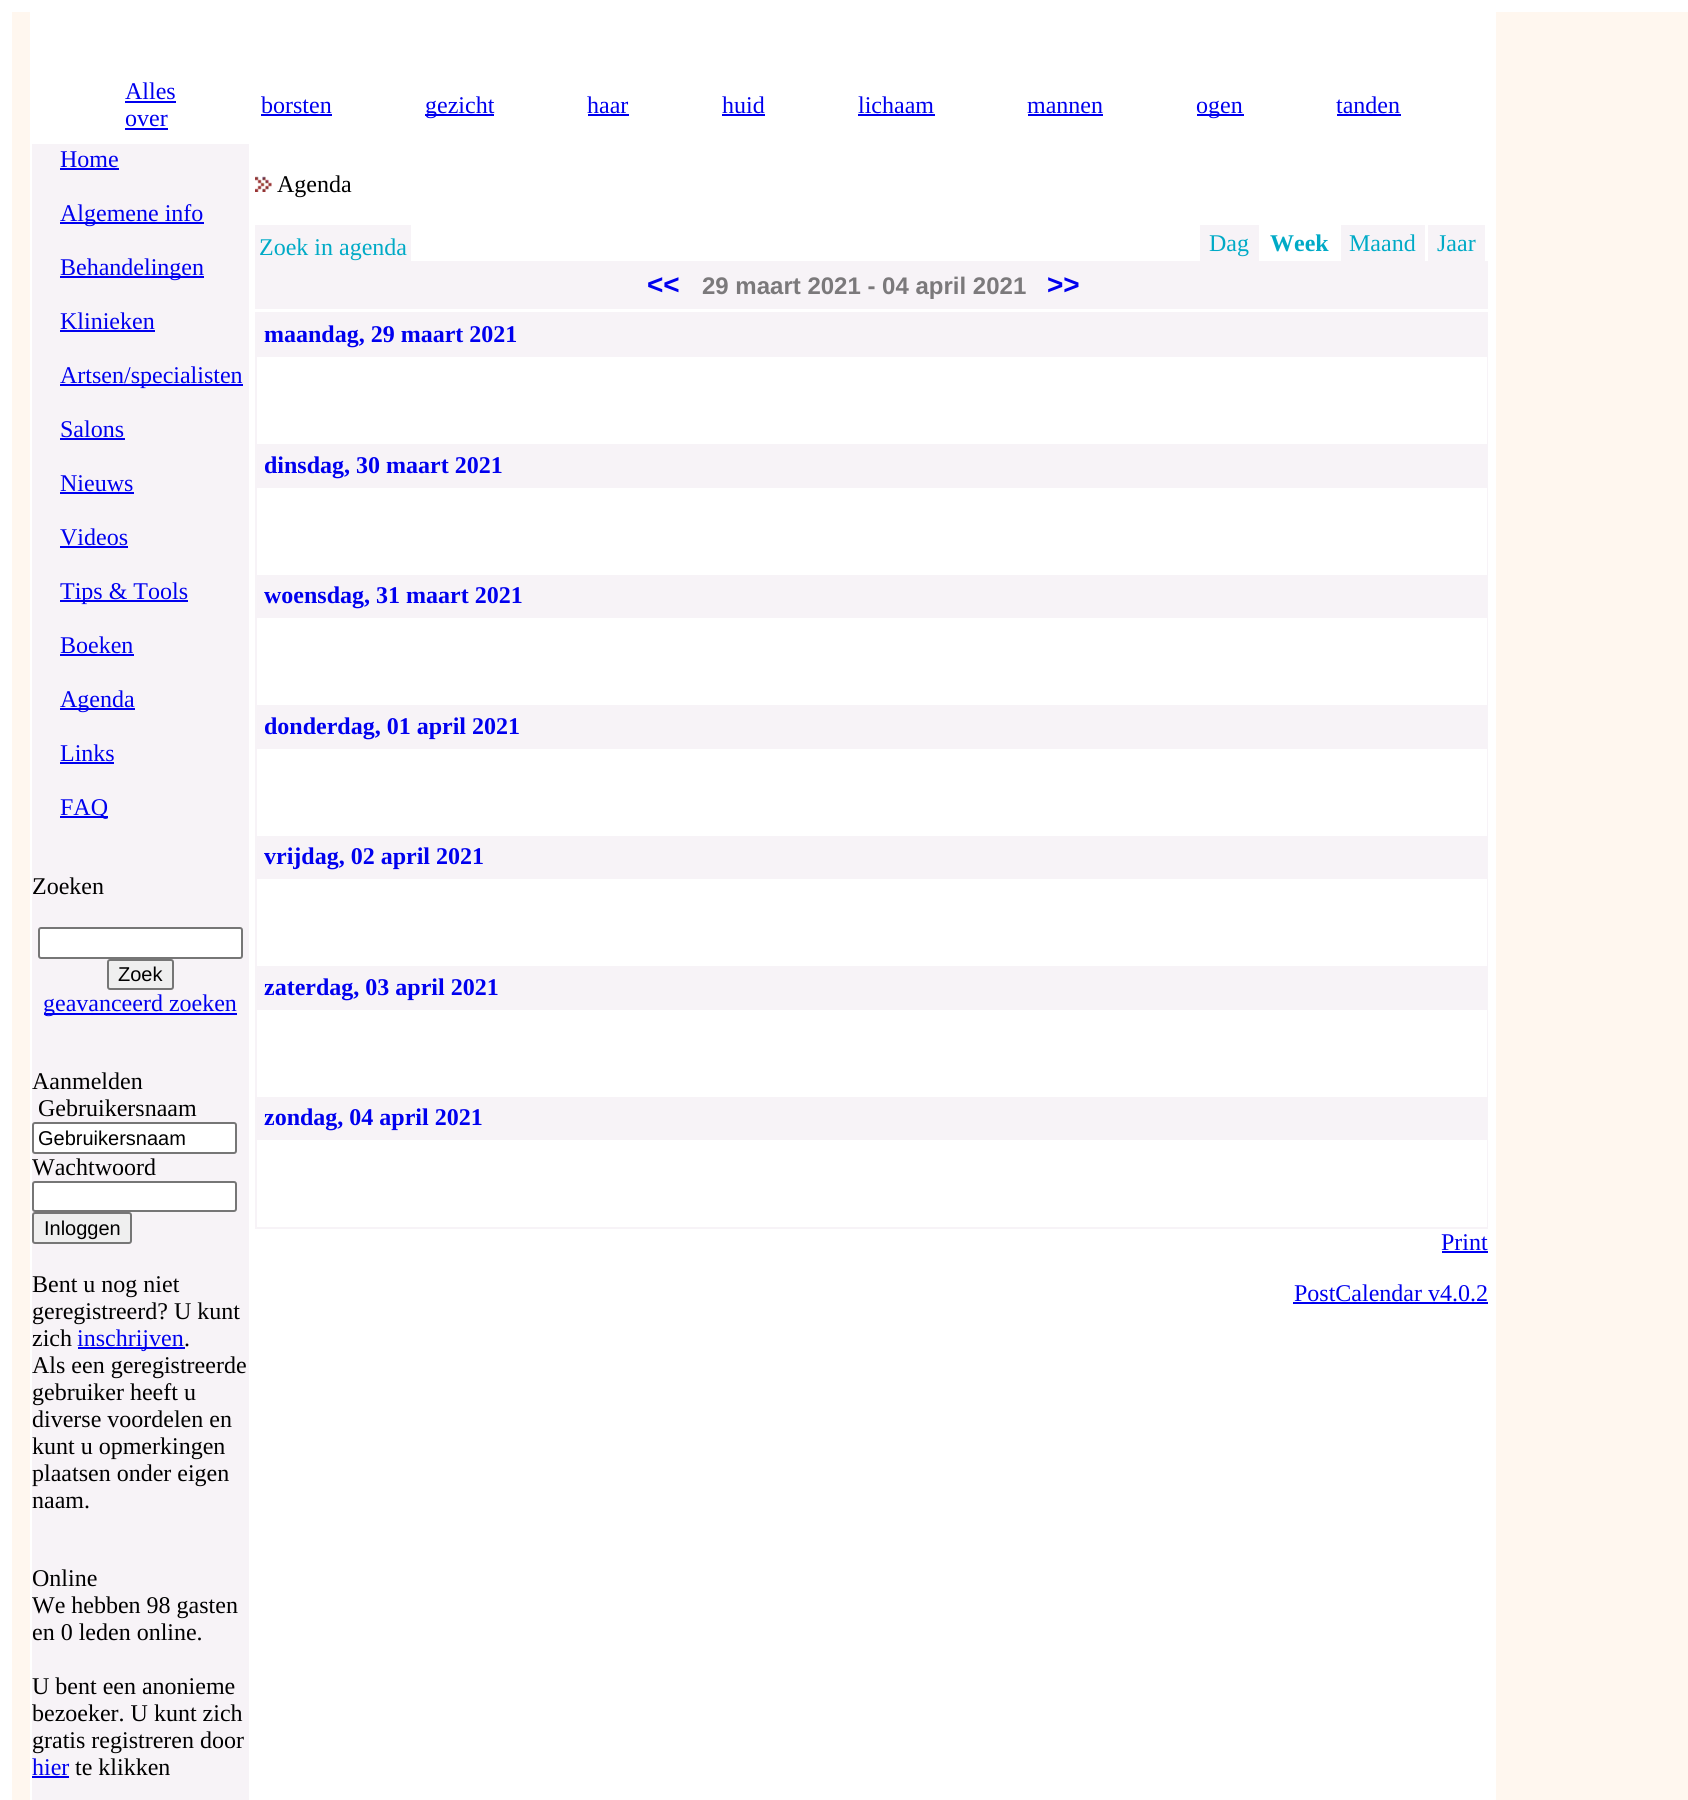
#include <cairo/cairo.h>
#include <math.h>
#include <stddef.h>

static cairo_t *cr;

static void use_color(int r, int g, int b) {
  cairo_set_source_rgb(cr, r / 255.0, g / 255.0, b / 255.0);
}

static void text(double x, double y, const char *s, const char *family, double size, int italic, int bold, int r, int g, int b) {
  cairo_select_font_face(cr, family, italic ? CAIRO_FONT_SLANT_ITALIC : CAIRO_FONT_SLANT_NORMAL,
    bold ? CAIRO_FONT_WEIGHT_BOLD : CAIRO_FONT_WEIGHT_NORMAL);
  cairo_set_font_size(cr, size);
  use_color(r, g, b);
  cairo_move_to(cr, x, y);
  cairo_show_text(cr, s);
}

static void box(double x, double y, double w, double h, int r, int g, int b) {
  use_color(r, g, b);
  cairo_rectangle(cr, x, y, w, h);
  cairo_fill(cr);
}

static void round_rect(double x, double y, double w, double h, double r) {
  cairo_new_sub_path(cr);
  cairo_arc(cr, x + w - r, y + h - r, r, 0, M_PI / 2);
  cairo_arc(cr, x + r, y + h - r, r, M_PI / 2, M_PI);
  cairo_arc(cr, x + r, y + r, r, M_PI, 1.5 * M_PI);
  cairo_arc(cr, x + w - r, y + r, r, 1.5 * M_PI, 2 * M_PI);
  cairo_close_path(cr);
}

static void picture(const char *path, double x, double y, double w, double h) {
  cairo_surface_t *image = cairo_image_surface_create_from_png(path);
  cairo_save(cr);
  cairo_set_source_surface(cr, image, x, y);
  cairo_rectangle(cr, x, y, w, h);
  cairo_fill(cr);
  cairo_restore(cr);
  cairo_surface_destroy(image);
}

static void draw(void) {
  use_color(255, 255, 255);
  cairo_paint(cr);
  box(12, 12, 18, 1788, 255, 247, 239);
  box(125, 101, 51, 2, 0, 0, 238);
  box(125, 128, 43, 2, 0, 0, 238);
  box(261, 114, 71, 2, 0, 0, 238);
  box(425, 114, 69, 2, 0, 0, 238);
  box(588, 114, 41, 2, 0, 0, 238);
  box(722, 114, 43, 2, 0, 0, 238);
  box(858, 114, 77, 2, 0, 0, 238);
  box(1028, 114, 75, 2, 0, 0, 238);
  box(1197, 114, 47, 2, 0, 0, 238);
  box(1337, 114, 64, 2, 0, 0, 238);
  box(32, 144, 217, 1656, 247, 243, 247);
  box(60, 168, 59, 2, 0, 0, 238);
  box(60, 222, 144, 2, 0, 0, 238);
  box(60, 276, 144, 2, 0, 0, 238);
  box(60, 330, 95, 2, 0, 0, 238);
  box(60, 384, 183, 2, 0, 0, 238);
  box(60, 438, 65, 2, 0, 0, 238);
  box(60, 492, 74, 2, 0, 0, 238);
  box(60, 546, 68, 2, 0, 0, 238);
  box(60, 600, 128, 2, 0, 0, 238);
  box(60, 654, 74, 2, 0, 0, 238);
  box(60, 708, 75, 2, 0, 0, 238);
  box(60, 762, 54, 2, 0, 0, 238);
  box(60, 816, 48, 2, 0, 0, 238);
  use_color(255, 255, 255);
  round_rect(39, 928, 203, 30, 2);
  cairo_fill_preserve(cr);
  use_color(118, 118, 118);
  cairo_stroke(cr);
  use_color(239, 239, 239);
  round_rect(108, 960, 65, 29, 2);
  cairo_fill_preserve(cr);
  use_color(118, 118, 118);
  cairo_stroke(cr);
  box(44, 1013, 193, 2, 0, 0, 238);
  use_color(255, 255, 255);
  round_rect(33, 1123, 203, 30, 2);
  cairo_fill_preserve(cr);
  use_color(118, 118, 118);
  cairo_stroke(cr);
  use_color(255, 255, 255);
  round_rect(33, 1182, 203, 29, 2);
  cairo_fill_preserve(cr);
  use_color(118, 118, 118);
  cairo_stroke(cr);
  use_color(239, 239, 239);
  round_rect(33, 1213, 98, 30, 2);
  cairo_fill_preserve(cr);
  use_color(118, 118, 118);
  cairo_stroke(cr);
  box(78, 1347, 107, 2, 0, 0, 238);
  box(32, 1776, 37, 2, 0, 0, 238);
  picture("img_01.png", 255, 176, 17, 16);
  box(255, 225, 156, 36, 247, 243, 247);
  box(1200, 225, 59, 36, 247, 243, 247);
  box(1341, 225, 84, 36, 247, 243, 247);
  box(1428, 225, 57, 36, 247, 243, 247);
  box(255, 261, 1233, 48, 247, 243, 247);
  cairo_rectangle(cr, 256, 313, 1231, 915);
  cairo_stroke(cr);
  box(257, 314, 1229, 42, 247, 243, 247);
  box(257, 356, 1230, 1, 247, 243, 247);
  box(1486, 357, 1, 87, 255, 255, 255);
  box(257, 444, 1229, 44, 247, 243, 247);
  box(1486, 488, 1, 87, 255, 255, 255);
  box(257, 575, 1229, 42, 247, 243, 247);
  box(257, 617, 1230, 1, 247, 243, 247);
  box(1486, 618, 1, 87, 255, 255, 255);
  box(257, 705, 1229, 44, 247, 243, 247);
  box(1486, 749, 1, 87, 255, 255, 255);
  box(257, 836, 1229, 42, 247, 243, 247);
  box(257, 878, 1230, 1, 247, 243, 247);
  box(1486, 879, 1, 87, 255, 255, 255);
  box(257, 966, 1229, 44, 247, 243, 247);
  box(1486, 1010, 1, 87, 255, 255, 255);
  box(257, 1097, 1229, 42, 247, 243, 247);
  box(257, 1139, 1230, 1, 247, 243, 247);
  box(1486, 1140, 1, 87, 255, 255, 255);
  box(1442, 1251, 46, 2, 0, 0, 238);
  box(1293, 1302, 195, 2, 0, 0, 238);
  box(1496, 12, 192, 1788, 255, 247, 239);
  text(125, 99, "Alles", "Liberation Serif", 24, 0, 0, 0, 0, 238);
  text(125, 126, "over", "Liberation Serif", 24, 0, 0, 0, 0, 238);
  text(261, 113, "borsten", "Liberation Serif", 24, 0, 0, 0, 0, 238);
  text(425, 113, "gezicht", "Liberation Serif", 24, 0, 0, 0, 0, 238);
  text(587, 113, "haar", "Liberation Serif", 24, 0, 0, 0, 0, 238);
  text(722, 113, "huid", "Liberation Serif", 24, 0, 0, 0, 0, 238);
  text(858, 113, "lichaam", "Liberation Serif", 24, 0, 0, 0, 0, 238);
  text(1027, 113, "mannen", "Liberation Serif", 24, 0, 0, 0, 0, 238);
  text(1196, 113, "ogen", "Liberation Serif", 24, 0, 0, 0, 0, 238);
  text(1336, 113, "tanden", "Liberation Serif", 24, 0, 0, 0, 0, 238);
  text(60, 167, "Home", "Liberation Serif", 24, 0, 0, 0, 0, 238);
  text(60, 221, "Algemene info", "Liberation Serif", 24, 0, 0, 0, 0, 238);
  text(60, 275, "Behandelingen", "Liberation Serif", 24, 0, 0, 0, 0, 238);
  text(60, 329, "Klinieken", "Liberation Serif", 24, 0, 0, 0, 0, 238);
  text(60, 383, "Artsen/specialisten", "Liberation Serif", 24, 0, 0, 0, 0, 238);
  text(60, 437, "Salons", "Liberation Serif", 24, 0, 0, 0, 0, 238);
  text(60, 491, "Nieuws", "Liberation Serif", 24, 0, 0, 0, 0, 238);
  text(60, 545, "Videos", "Liberation Serif", 24, 0, 0, 0, 0, 238);
  text(60, 599, "Tips & Tools", "Liberation Serif", 24, 0, 0, 0, 0, 238);
  text(60, 653, "Boeken", "Liberation Serif", 24, 0, 0, 0, 0, 238);
  text(60, 707, "Agenda", "Liberation Serif", 24, 0, 0, 0, 0, 238);
  text(60, 761, "Links", "Liberation Serif", 24, 0, 0, 0, 0, 238);
  text(60, 815, "FAQ", "Liberation Serif", 24, 0, 0, 0, 0, 238);
  text(32, 894, "Zoeken", "Liberation Serif", 24, 0, 0, 0, 0, 0);
  text(118, 981, "Zoek", "Liberation Sans", 20, 0, 0, 0, 0, 0);
  text(43, 1011, "geavanceerd zoeken", "Liberation Serif", 24, 0, 0, 0, 0, 238);
  text(32, 1089, "Aanmelden", "Liberation Serif", 24, 0, 0, 0, 0, 0);
  text(38, 1116, "Gebruikersnaam", "Liberation Serif", 24, 0, 0, 0, 0, 0);
  text(38, 1145, "Gebruikersnaam", "Liberation Sans", 20, 0, 0, 0, 0, 0);
  text(32, 1175, "Wachtwoord", "Liberation Serif", 24, 0, 0, 0, 0, 0);
  text(44, 1235, "Inloggen", "Liberation Sans", 20, 0, 0, 0, 0, 0);
  text(32, 1292, "Bent u nog niet", "Liberation Serif", 24, 0, 0, 0, 0, 0);
  text(32, 1319, "geregistreerd? U kunt", "Liberation Serif", 24, 0, 0, 0, 0, 0);
  text(32, 1346, "zich", "Liberation Serif", 24, 0, 0, 0, 0, 0);
  text(77, 1346, "inschrijven", "Liberation Serif", 24, 0, 0, 0, 0, 238);
  text(184, 1346, ".", "Liberation Serif", 24, 0, 0, 0, 0, 0);
  text(32, 1373, "Als een geregistreerde", "Liberation Serif", 24, 0, 0, 0, 0, 0);
  text(32, 1400, "gebruiker heeft u", "Liberation Serif", 24, 0, 0, 0, 0, 0);
  text(32, 1427, "diverse voordelen en", "Liberation Serif", 24, 0, 0, 0, 0, 0);
  text(32, 1454, "kunt u opmerkingen", "Liberation Serif", 24, 0, 0, 0, 0, 0);
  text(32, 1481, "plaatsen onder eigen", "Liberation Serif", 24, 0, 0, 0, 0, 0);
  text(32, 1508, "naam.", "Liberation Serif", 24, 0, 0, 0, 0, 0);
  text(32, 1586, "Online", "Liberation Serif", 24, 0, 0, 0, 0, 0);
  text(32, 1613, "We hebben 98 gasten", "Liberation Serif", 24, 0, 0, 0, 0, 0);
  text(32, 1640, "en 0 leden online.", "Liberation Serif", 24, 0, 0, 0, 0, 0);
  text(32, 1694, "U bent een anonieme", "Liberation Serif", 24, 0, 0, 0, 0, 0);
  text(32, 1721, "bezoeker. U kunt zich", "Liberation Serif", 24, 0, 0, 0, 0, 0);
  text(32, 1748, "gratis registreren door", "Liberation Serif", 24, 0, 0, 0, 0, 0);
  text(32, 1775, "hier", "Liberation Serif", 24, 0, 0, 0, 0, 238);
  text(75, 1775, "te klikken", "Liberation Serif", 24, 0, 0, 0, 0, 0);
  text(277, 192, "Agenda", "Liberation Serif", 24, 0, 0, 0, 0, 0);
  text(259, 255, "Zoek in agenda", "Liberation Serif", 24, 0, 0, 0, 170, 198);
  text(1209, 251, "Dag", "Liberation Serif", 24, 0, 0, 0, 170, 198);
  text(1270, 251, "Week", "Liberation Serif", 24, 0, 1, 0, 170, 198);
  text(1349, 251, "Maand", "Liberation Serif", 24, 0, 0, 0, 170, 198);
  text(1437, 251, "Jaar", "Liberation Serif", 24, 0, 0, 0, 170, 198);
  text(647, 294, "<<", "Liberation Sans", 28, 0, 1, 0, 0, 238);
  text(702, 294, "29 maart 2021 - 04 april 2021", "Liberation Sans", 24, 0, 1, 123, 121, 123);
  text(1047, 294, ">>", "Liberation Sans", 28, 0, 1, 0, 0, 238);
  text(264, 342, "maandag, 29 maart 2021", "Liberation Serif", 24, 0, 1, 0, 0, 238);
  text(264, 473, "dinsdag, 30 maart 2021", "Liberation Serif", 24, 0, 1, 0, 0, 238);
  text(264, 603, "woensdag, 31 maart 2021", "Liberation Serif", 24, 0, 1, 0, 0, 238);
  text(264, 734, "donderdag, 01 april 2021", "Liberation Serif", 24, 0, 1, 0, 0, 238);
  text(264, 864, "vrijdag, 02 april 2021", "Liberation Serif", 24, 0, 1, 0, 0, 238);
  text(264, 995, "zaterdag, 03 april 2021", "Liberation Serif", 24, 0, 1, 0, 0, 238);
  text(264, 1125, "zondag, 04 april 2021", "Liberation Serif", 24, 0, 1, 0, 0, 238);
  text(1441, 1250, "Print", "Liberation Serif", 24, 0, 0, 0, 0, 238);
  text(1294, 1301, "PostCalendar v4.0.2", "Liberation Serif", 24, 0, 0, 0, 0, 238);
}

int main(void) {
  cairo_surface_t *surface = cairo_image_surface_create(CAIRO_FORMAT_RGB24, 1688, 1800);
  cr = cairo_create(surface);
  cairo_font_options_t *options = cairo_font_options_create();
  cairo_font_options_set_hint_metrics(options, CAIRO_HINT_METRICS_OFF);
  cairo_font_options_set_hint_style(options, CAIRO_HINT_STYLE_NONE);
  cairo_set_font_options(cr, options);
  cairo_set_miter_limit(cr, 4);
  draw();
  cairo_surface_write_to_png(surface, "out.png");
  cairo_font_options_destroy(options);
  cairo_destroy(cr);
  cairo_surface_destroy(surface);
  return 0;
}
